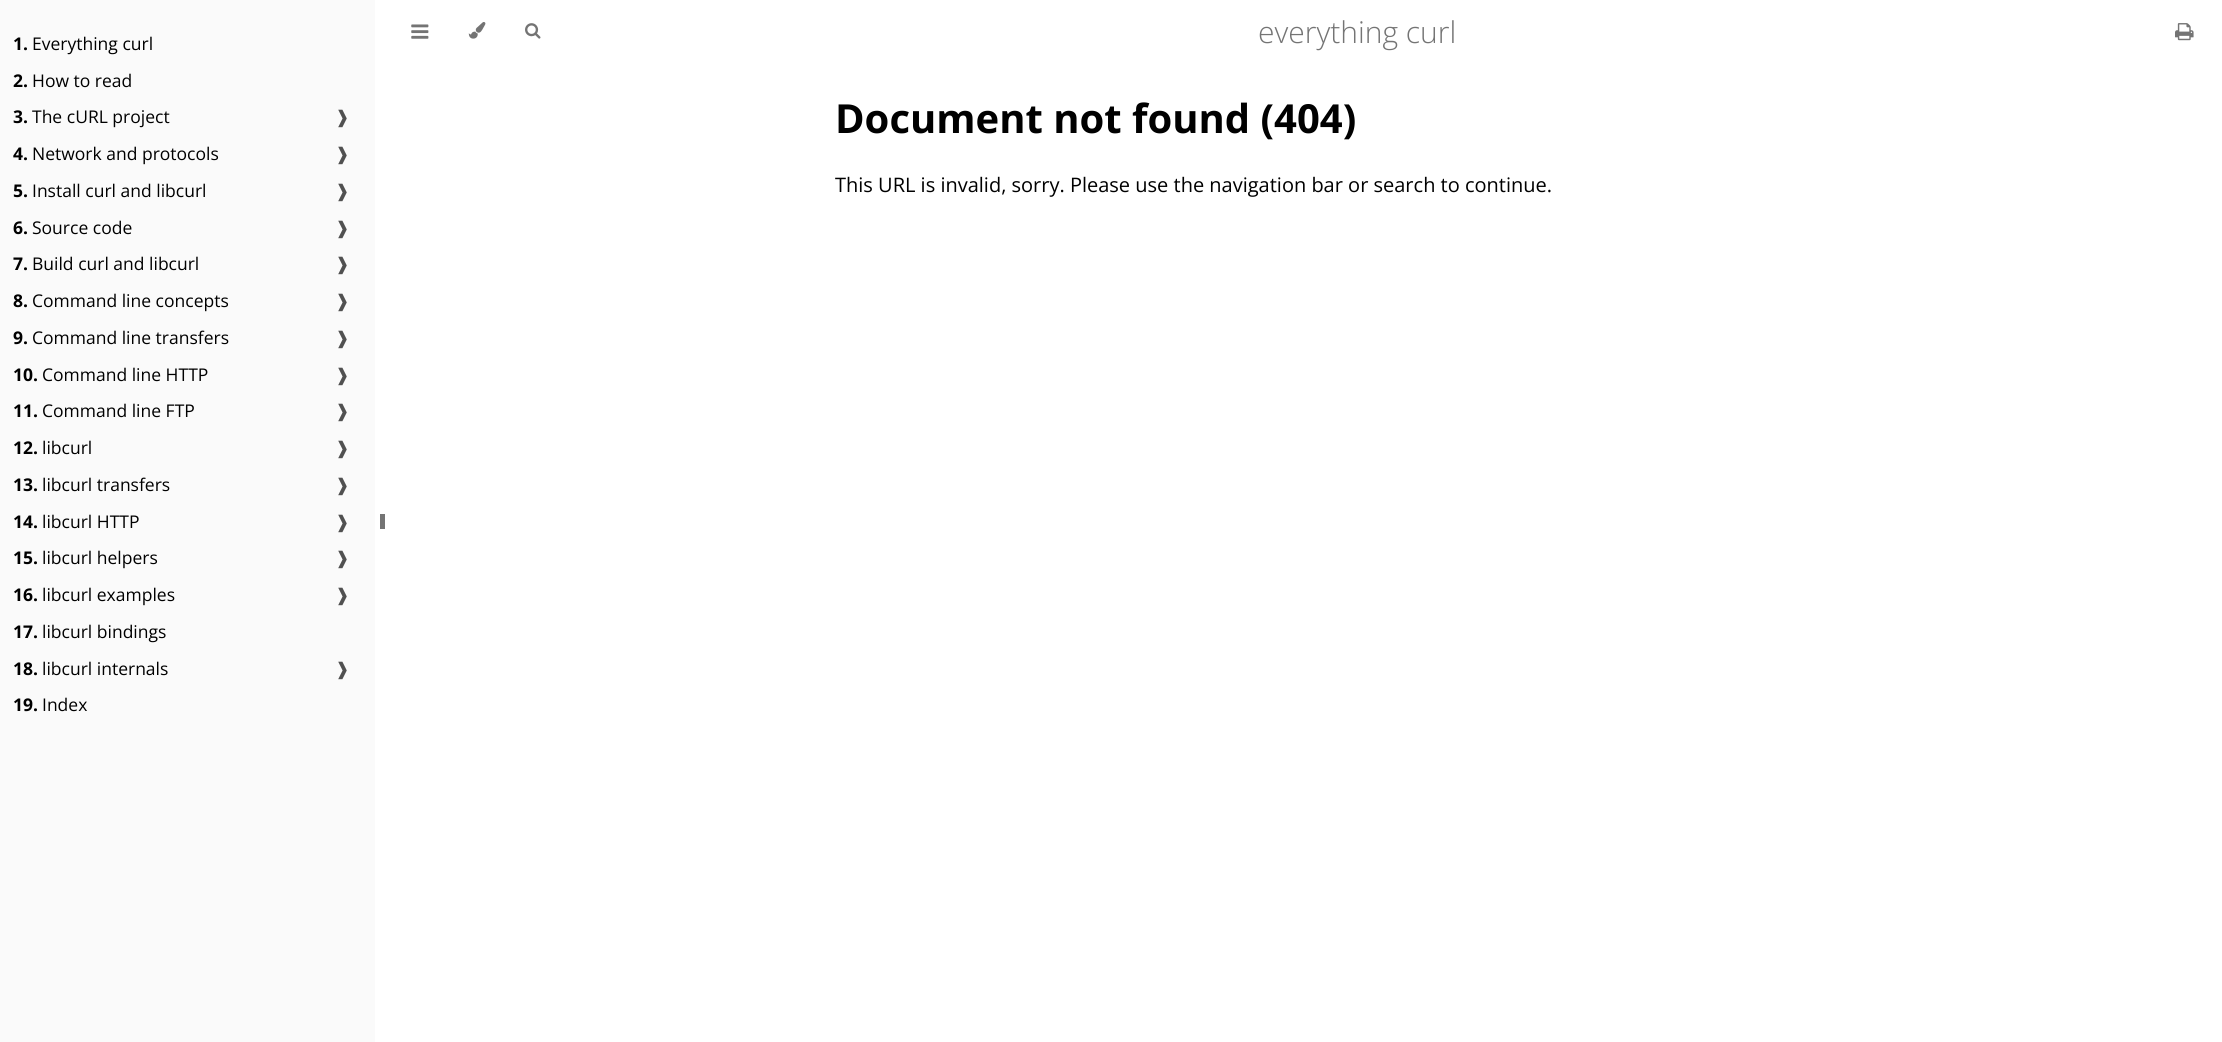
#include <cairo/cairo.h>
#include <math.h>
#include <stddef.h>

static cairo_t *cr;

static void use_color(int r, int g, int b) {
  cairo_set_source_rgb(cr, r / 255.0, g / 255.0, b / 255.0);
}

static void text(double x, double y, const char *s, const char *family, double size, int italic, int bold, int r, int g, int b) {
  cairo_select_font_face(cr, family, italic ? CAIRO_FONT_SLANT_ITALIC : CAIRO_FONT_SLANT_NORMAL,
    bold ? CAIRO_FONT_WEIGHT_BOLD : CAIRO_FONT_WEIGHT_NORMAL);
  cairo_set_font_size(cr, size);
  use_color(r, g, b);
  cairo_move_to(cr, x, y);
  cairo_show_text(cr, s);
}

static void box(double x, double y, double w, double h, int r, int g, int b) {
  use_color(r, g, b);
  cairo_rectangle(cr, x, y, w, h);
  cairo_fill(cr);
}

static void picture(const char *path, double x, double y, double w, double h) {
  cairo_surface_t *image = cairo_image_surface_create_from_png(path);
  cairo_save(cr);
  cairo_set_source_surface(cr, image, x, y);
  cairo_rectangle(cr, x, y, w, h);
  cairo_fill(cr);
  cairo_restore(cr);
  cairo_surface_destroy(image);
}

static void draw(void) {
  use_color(255, 255, 255);
  cairo_paint(cr);
  box(0, 0, 375, 1042, 250, 250, 250);
  box(380, 514, 5, 15, 116, 116, 116);
  picture("img_01.png", 411, 24, 18, 15);
  picture("img_02.png", 468, 22, 18, 17);
  picture("img_03.png", 525, 23, 16, 16);
  picture("img_04.png", 2175, 23, 19, 18);
  text(13, 50, "1.", "Open Sans", 17.5, 0, 1, 0, 0, 0);
  text(32, 50, "Everything curl", "Open Sans", 17.5, 0, 0, 0, 0, 0);
  text(13, 87, "2.", "Open Sans", 17.5, 0, 1, 0, 0, 0);
  text(32, 87, "How to read", "Open Sans", 17.5, 0, 0, 0, 0, 0);
  text(13, 123, "3.", "Open Sans", 17.5, 0, 1, 0, 0, 0);
  text(32, 123, "The cURL project", "Open Sans", 17.5, 0, 0, 0, 0, 0);
  text(335, 123, "❱", "DejaVu Sans", 17.5, 0, 0, 80, 80, 80);
  text(13, 160, "4.", "Open Sans", 17.5, 0, 1, 0, 0, 0);
  text(32, 160, "Network and protocols", "Open Sans", 17.5, 0, 0, 0, 0, 0);
  text(335, 160, "❱", "DejaVu Sans", 17.5, 0, 0, 80, 80, 80);
  text(13, 197, "5.", "Open Sans", 17.5, 0, 1, 0, 0, 0);
  text(32, 197, "Install curl and libcurl", "Open Sans", 17.5, 0, 0, 0, 0, 0);
  text(335, 197, "❱", "DejaVu Sans", 17.5, 0, 0, 80, 80, 80);
  text(13, 234, "6.", "Open Sans", 17.5, 0, 1, 0, 0, 0);
  text(32, 234, "Source code", "Open Sans", 17.5, 0, 0, 0, 0, 0);
  text(335, 234, "❱", "DejaVu Sans", 17.5, 0, 0, 80, 80, 80);
  text(13, 270, "7.", "Open Sans", 17.5, 0, 1, 0, 0, 0);
  text(32, 270, "Build curl and libcurl", "Open Sans", 17.5, 0, 0, 0, 0, 0);
  text(335, 270, "❱", "DejaVu Sans", 17.5, 0, 0, 80, 80, 80);
  text(13, 307, "8.", "Open Sans", 17.5, 0, 1, 0, 0, 0);
  text(32, 307, "Command line concepts", "Open Sans", 17.5, 0, 0, 0, 0, 0);
  text(335, 307, "❱", "DejaVu Sans", 17.5, 0, 0, 80, 80, 80);
  text(13, 344, "9.", "Open Sans", 17.5, 0, 1, 0, 0, 0);
  text(32, 344, "Command line transfers", "Open Sans", 17.5, 0, 0, 0, 0, 0);
  text(335, 344, "❱", "DejaVu Sans", 17.5, 0, 0, 80, 80, 80);
  text(13, 381, "10.", "Open Sans", 17.5, 0, 1, 0, 0, 0);
  text(42, 381, "Command line HTTP", "Open Sans", 17.5, 0, 0, 0, 0, 0);
  text(335, 381, "❱", "DejaVu Sans", 17.5, 0, 0, 80, 80, 80);
  text(13, 417, "11.", "Open Sans", 17.5, 0, 1, 0, 0, 0);
  text(42, 417, "Command line FTP", "Open Sans", 17.5, 0, 0, 0, 0, 0);
  text(335, 417, "❱", "DejaVu Sans", 17.5, 0, 0, 80, 80, 80);
  text(13, 454, "12.", "Open Sans", 17.5, 0, 1, 0, 0, 0);
  text(42, 454, "libcurl", "Open Sans", 17.5, 0, 0, 0, 0, 0);
  text(335, 454, "❱", "DejaVu Sans", 17.5, 0, 0, 80, 80, 80);
  text(13, 491, "13.", "Open Sans", 17.5, 0, 1, 0, 0, 0);
  text(42, 491, "libcurl transfers", "Open Sans", 17.5, 0, 0, 0, 0, 0);
  text(335, 491, "❱", "DejaVu Sans", 17.5, 0, 0, 80, 80, 80);
  text(13, 528, "14.", "Open Sans", 17.5, 0, 1, 0, 0, 0);
  text(42, 528, "libcurl HTTP", "Open Sans", 17.5, 0, 0, 0, 0, 0);
  text(335, 528, "❱", "DejaVu Sans", 17.5, 0, 0, 80, 80, 80);
  text(13, 564, "15.", "Open Sans", 17.5, 0, 1, 0, 0, 0);
  text(42, 564, "libcurl helpers", "Open Sans", 17.5, 0, 0, 0, 0, 0);
  text(335, 564, "❱", "DejaVu Sans", 17.5, 0, 0, 80, 80, 80);
  text(13, 601, "16.", "Open Sans", 17.5, 0, 1, 0, 0, 0);
  text(42, 601, "libcurl examples", "Open Sans", 17.5, 0, 0, 0, 0, 0);
  text(335, 601, "❱", "DejaVu Sans", 17.5, 0, 0, 80, 80, 80);
  text(13, 638, "17.", "Open Sans", 17.5, 0, 1, 0, 0, 0);
  text(42, 638, "libcurl bindings", "Open Sans", 17.5, 0, 0, 0, 0, 0);
  text(13, 675, "18.", "Open Sans", 17.5, 0, 1, 0, 0, 0);
  text(42, 675, "libcurl internals", "Open Sans", 17.5, 0, 0, 0, 0, 0);
  text(335, 675, "❱", "DejaVu Sans", 17.5, 0, 0, 80, 80, 80);
  text(13, 711, "19.", "Open Sans", 17.5, 0, 1, 0, 0, 0);
  text(42, 711, "Index", "Open Sans", 17.5, 0, 0, 0, 0, 0);
  text(1258, 43, "everything curl", "Open Sans Light", 30, 0, 0, 116, 116, 116);
  text(835, 133, "Document not found (404)", "Open Sans", 40, 0, 1, 0, 0, 0);
  text(835, 192, "This URL is invalid, sorry. Please use the navigation bar or search to continue.", "Open Sans", 20, 0, 0, 0, 0, 0);
}

int main(void) {
  cairo_surface_t *surface = cairo_image_surface_create(CAIRO_FORMAT_RGB24, 2222, 1042);
  cr = cairo_create(surface);
  cairo_font_options_t *options = cairo_font_options_create();
  cairo_font_options_set_hint_metrics(options, CAIRO_HINT_METRICS_OFF);
  cairo_font_options_set_hint_style(options, CAIRO_HINT_STYLE_NONE);
  cairo_set_font_options(cr, options);
  cairo_set_miter_limit(cr, 4);
  draw();
  cairo_surface_write_to_png(surface, "out.png");
  cairo_font_options_destroy(options);
  cairo_destroy(cr);
  cairo_surface_destroy(surface);
  return 0;
}
